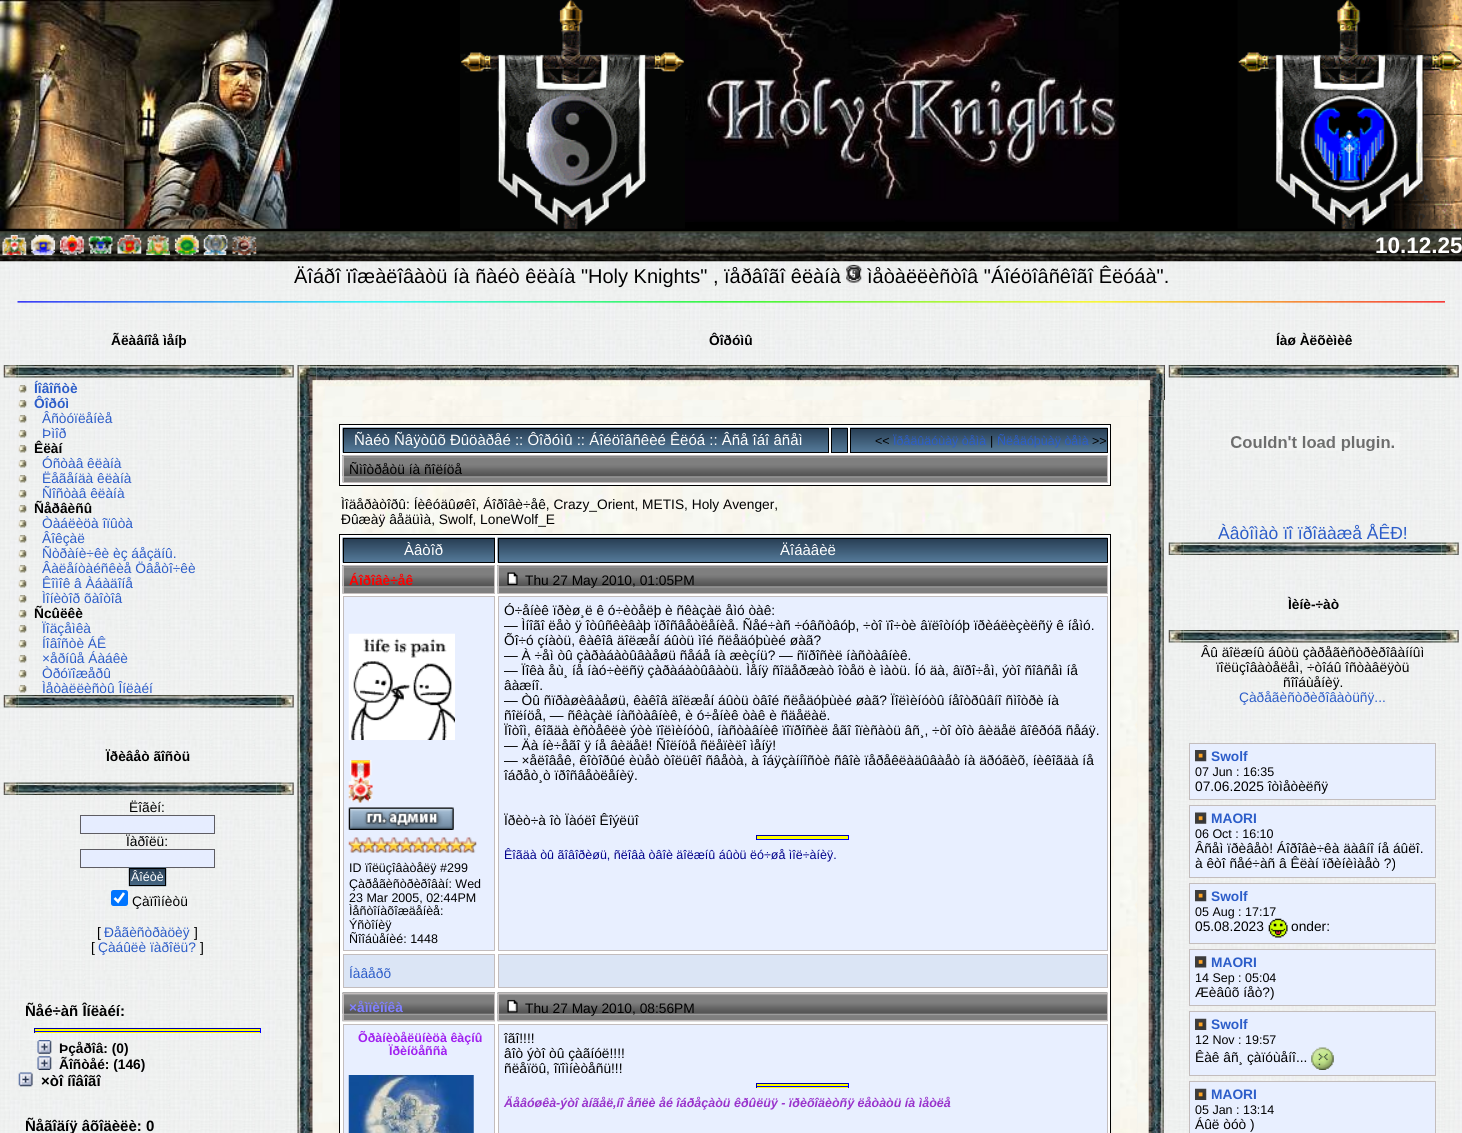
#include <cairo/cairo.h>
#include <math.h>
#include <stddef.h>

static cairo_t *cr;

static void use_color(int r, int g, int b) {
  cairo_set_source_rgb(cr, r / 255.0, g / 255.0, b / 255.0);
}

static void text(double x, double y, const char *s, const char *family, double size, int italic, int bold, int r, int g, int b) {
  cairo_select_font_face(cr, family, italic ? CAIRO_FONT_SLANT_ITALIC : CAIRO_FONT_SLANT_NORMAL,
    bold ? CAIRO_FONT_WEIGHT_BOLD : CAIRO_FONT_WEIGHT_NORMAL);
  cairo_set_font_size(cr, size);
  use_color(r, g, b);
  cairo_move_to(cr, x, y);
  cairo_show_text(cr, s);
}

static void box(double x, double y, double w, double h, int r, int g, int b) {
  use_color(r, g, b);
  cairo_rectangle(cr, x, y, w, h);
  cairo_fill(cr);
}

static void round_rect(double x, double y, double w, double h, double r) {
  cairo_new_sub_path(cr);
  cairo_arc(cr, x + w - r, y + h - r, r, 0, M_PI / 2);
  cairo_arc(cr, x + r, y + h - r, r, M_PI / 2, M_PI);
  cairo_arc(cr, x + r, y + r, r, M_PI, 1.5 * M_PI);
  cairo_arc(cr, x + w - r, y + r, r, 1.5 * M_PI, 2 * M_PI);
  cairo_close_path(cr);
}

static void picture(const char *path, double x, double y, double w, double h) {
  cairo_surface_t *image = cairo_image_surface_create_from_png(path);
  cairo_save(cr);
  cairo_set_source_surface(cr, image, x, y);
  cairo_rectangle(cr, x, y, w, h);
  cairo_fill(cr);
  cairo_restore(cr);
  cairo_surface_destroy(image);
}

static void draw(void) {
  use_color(255, 255, 255);
  cairo_paint(cr);
  picture("img_01.png", 0, 261, 1462, 872);
  box(0, 0, 1462, 232, 0, 0, 0);
  picture("img_02.png", 0, 0, 340, 229);
  picture("img_03.png", 460, 0, 225, 229);
  picture("img_04.png", 685, 0, 434, 222);
  picture("img_05.png", 1237, 0, 225, 229);
  picture("img_06.png", 0, 231, 1462, 31);
  picture("img_07.png", 2, 235, 25, 20);
  picture("img_08.png", 31, 235, 24, 20);
  picture("img_09.png", 60, 235, 24, 20);
  picture("img_10.png", 88, 236, 25, 18);
  picture("img_11.png", 117, 235, 25, 19);
  picture("img_12.png", 146, 235, 24, 20);
  picture("img_13.png", 175, 235, 24, 20);
  picture("img_14.png", 203, 235, 25, 20);
  picture("img_15.png", 232, 235, 25, 20);
  picture("img_16.png", 846, 264, 16, 19);
  picture("img_17.png", 17, 301, 1428, 2);
  picture("img_18.png", 3, 365, 16, 13);
  picture("img_19.png", 18, 365, 259, 13);
  picture("img_20.png", 276, 365, 18, 13);
  picture("img_21.png", 18, 385, 9, 8);
  picture("img_22.png", 18, 400, 9, 8);
  picture("img_23.png", 18, 415, 9, 8);
  picture("img_24.png", 18, 430, 9, 8);
  picture("img_25.png", 18, 445, 9, 8);
  picture("img_26.png", 18, 460, 9, 8);
  picture("img_27.png", 18, 475, 9, 8);
  picture("img_28.png", 18, 490, 9, 8);
  picture("img_21.png", 18, 505, 9, 8);
  picture("img_22.png", 18, 520, 9, 8);
  picture("img_23.png", 18, 535, 9, 8);
  picture("img_24.png", 18, 550, 9, 8);
  picture("img_25.png", 18, 565, 9, 8);
  picture("img_26.png", 18, 580, 9, 8);
  picture("img_27.png", 18, 595, 9, 8);
  picture("img_28.png", 18, 610, 9, 8);
  picture("img_21.png", 18, 625, 9, 8);
  picture("img_22.png", 18, 640, 9, 8);
  picture("img_23.png", 18, 655, 9, 8);
  picture("img_24.png", 18, 670, 9, 8);
  picture("img_25.png", 18, 685, 9, 8);
  picture("img_29.png", 3, 695, 16, 13);
  picture("img_30.png", 18, 695, 259, 13);
  picture("img_31.png", 276, 695, 18, 13);
  picture("img_32.png", 3, 782, 16, 13);
  picture("img_33.png", 18, 782, 259, 13);
  picture("img_34.png", 276, 782, 18, 13);
  use_color(230, 237, 255);
  cairo_rectangle(cr, 80.5, 815.5, 134, 18);
  cairo_fill_preserve(cr);
  use_color(94, 93, 99);
  cairo_set_line_width(cr, 1);
  cairo_stroke(cr);
  use_color(230, 237, 255);
  cairo_rectangle(cr, 80.5, 849.5, 134, 18);
  cairo_fill_preserve(cr);
  use_color(94, 93, 99);
  cairo_stroke(cr);
  picture("img_35.png", 128, 867, 39, 20);
  cairo_rectangle(cr, 129.5, 868.5, 36, 17);
  use_color(0, 0, 0);
  cairo_stroke(cr);
  use_color(0, 117, 255);
  round_rect(111, 890, 17, 16, 2.5);
  cairo_fill(cr);
  cairo_new_path(cr);
  cairo_move_to(cr, 114.5, 898);
  cairo_line_to(cr, 118, 901.5);
  cairo_line_to(cr, 124, 893);
  use_color(255, 255, 255);
  cairo_set_line_width(cr, 2.6);
  cairo_stroke(cr);
  box(34, 1029, 227, 4, 255, 255, 0);
  box(34, 1028, 227, 1, 0, 0, 170);
  box(260, 1028, 1, 5, 0, 0, 255);
  box(34, 1031, 227, 1, 0, 0, 255);
  box(34, 1028, 1, 5, 0, 0, 170);
  picture("img_36.png", 37, 1040, 15, 14);
  picture("img_37.png", 37, 1056, 15, 14);
  picture("img_38.png", 18, 1072, 15, 15);
  picture("img_39.png", 297, 365, 20, 35);
  picture("img_40.png", 316, 365, 823, 35);
  picture("img_41.png", 1138, 365, 27, 35);
  picture("img_42.png", 297, 400, 17, 17);
  picture("img_43.png", 314, 400, 824, 17);
  picture("img_44.png", 1138, 400, 26, 17);
  picture("img_45.png", 297, 416, 17, 717);
  picture("img_46.png", 314, 416, 824, 717);
  use_color(255, 255, 255);
  cairo_rectangle(cr, 339.5, 424.5, 771, 61);
  cairo_fill_preserve(cr);
  use_color(0, 0, 0);
  cairo_set_line_width(cr, 1);
  cairo_stroke(cr);
  picture("img_47.png", 342, 427, 487, 26);
  cairo_rectangle(cr, 343.5, 428.5, 485, 24);
  cairo_stroke(cr);
  picture("img_48.png", 831, 427, 17, 25);
  cairo_rectangle(cr, 831.5, 428.5, 16, 24);
  cairo_stroke(cr);
  picture("img_49.png", 850, 427, 258, 25);
  cairo_rectangle(cr, 850.5, 428.5, 257, 24);
  cairo_stroke(cr);
  picture("img_50.png", 342, 455, 765, 28);
  cairo_rectangle(cr, 343.5, 455.5, 764, 27);
  use_color(195, 189, 189);
  cairo_stroke(cr);
  use_color(255, 255, 255);
  cairo_rectangle(cr, 339.5, 534.5, 771, 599);
  cairo_fill_preserve(cr);
  use_color(0, 0, 0);
  cairo_stroke(cr);
  picture("img_51.png", 342, 537, 153, 26);
  cairo_rectangle(cr, 343.5, 538.5, 151, 24);
  cairo_stroke(cr);
  picture("img_52.png", 497, 537, 611, 26);
  cairo_rectangle(cr, 498.5, 538.5, 609, 24);
  cairo_stroke(cr);
  picture("img_53.png", 342, 565, 152, 29);
  cairo_rectangle(cr, 343.5, 565.5, 151, 28);
  use_color(195, 189, 189);
  cairo_stroke(cr);
  picture("img_54.png", 497, 565, 610, 29);
  cairo_rectangle(cr, 498.5, 565.5, 609, 28);
  cairo_stroke(cr);
  picture("img_55.png", 507, 572, 11, 13);
  use_color(232, 239, 255);
  cairo_rectangle(cr, 498.5, 596.5, 609, 354);
  cairo_fill_preserve(cr);
  use_color(195, 189, 189);
  cairo_stroke(cr);
  box(756, 836, 93, 3, 255, 255, 0);
  box(756, 835, 93, 1, 0, 0, 170);
  box(848, 835, 1, 5, 0, 0, 255);
  box(756, 839, 93, 1, 0, 0, 255);
  box(756, 835, 1, 5, 0, 0, 170);
  use_color(232, 239, 255);
  cairo_rectangle(cr, 343.5, 596.5, 151, 354);
  cairo_fill_preserve(cr);
  use_color(195, 189, 189);
  cairo_stroke(cr);
  picture("img_56.png", 348, 633, 107, 107);
  picture("img_57.png", 348, 760, 25, 43);
  picture("img_58.png", 348, 807, 106, 23);
  picture("img_59.png", 348, 837, 129, 16);
  use_color(219, 229, 245);
  cairo_rectangle(cr, 343.5, 954.5, 151, 33);
  cairo_fill_preserve(cr);
  use_color(195, 189, 189);
  cairo_stroke(cr);
  use_color(219, 229, 245);
  cairo_rectangle(cr, 498.5, 954.5, 609, 33);
  cairo_fill_preserve(cr);
  use_color(195, 189, 189);
  cairo_stroke(cr);
  picture("img_60.png", 342, 992, 153, 30);
  cairo_rectangle(cr, 343.5, 993.5, 151, 27);
  cairo_stroke(cr);
  picture("img_61.png", 497, 992, 611, 30);
  cairo_rectangle(cr, 498.5, 993.5, 609, 27);
  cairo_stroke(cr);
  picture("img_62.png", 507, 999, 11, 14);
  use_color(232, 239, 255);
  cairo_rectangle(cr, 343.5, 1024.5, 151, 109);
  cairo_fill_preserve(cr);
  use_color(195, 189, 189);
  cairo_stroke(cr);
  picture("img_63.png", 348, 1075, 126, 58);
  use_color(232, 239, 255);
  cairo_rectangle(cr, 498.5, 1024.5, 609, 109);
  cairo_fill_preserve(cr);
  use_color(195, 189, 189);
  cairo_stroke(cr);
  box(756, 1084, 93, 4, 255, 255, 0);
  box(756, 1083, 93, 1, 0, 0, 170);
  box(848, 1083, 1, 5, 0, 0, 255);
  box(756, 1086, 93, 1, 0, 0, 255);
  box(756, 1083, 1, 5, 0, 0, 170);
  picture("img_64.png", 1137, 416, 27, 717);
  picture("img_65.png", 1168, 365, 16, 13);
  picture("img_66.png", 1183, 365, 259, 13);
  picture("img_67.png", 1441, 365, 18, 13);
  picture("img_68.png", 1229, 432, 171, 19);
  picture("img_69.png", 1168, 542, 16, 13);
  picture("img_70.png", 1183, 542, 259, 13);
  picture("img_71.png", 1441, 542, 18, 13);
  picture("img_72.png", 1168, 630, 16, 13);
  picture("img_73.png", 1183, 630, 259, 13);
  picture("img_74.png", 1441, 630, 18, 13);
  use_color(232, 239, 255);
  cairo_rectangle(cr, 1189.5, 743.5, 246, 56);
  cairo_fill_preserve(cr);
  use_color(195, 189, 189);
  cairo_stroke(cr);
  picture("img_75.png", 1195, 750, 12, 12);
  use_color(232, 239, 255);
  cairo_rectangle(cr, 1189.5, 805.5, 246, 72);
  cairo_fill_preserve(cr);
  use_color(195, 189, 189);
  cairo_stroke(cr);
  picture("img_76.png", 1195, 812, 12, 12);
  use_color(232, 239, 255);
  cairo_rectangle(cr, 1189.5, 883.5, 246, 60);
  cairo_fill_preserve(cr);
  use_color(195, 189, 189);
  cairo_stroke(cr);
  picture("img_75.png", 1195, 890, 12, 12);
  use_color(232, 239, 255);
  cairo_rectangle(cr, 1189.5, 949.5, 246, 56);
  cairo_fill_preserve(cr);
  use_color(195, 189, 189);
  cairo_stroke(cr);
  picture("img_78.png", 1195, 956, 12, 12);
  use_color(232, 239, 255);
  cairo_rectangle(cr, 1189.5, 1011.5, 246, 64);
  cairo_fill_preserve(cr);
  use_color(195, 189, 189);
  cairo_stroke(cr);
  picture("img_79.png", 1195, 1018, 12, 12);
  picture("img_80.png", 1311, 1047, 23, 23);
  use_color(232, 239, 255);
  cairo_rectangle(cr, 1189.5, 1081.5, 246, 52);
  cairo_fill_preserve(cr);
  use_color(195, 189, 189);
  cairo_stroke(cr);
  picture("img_79.png", 1195, 1088, 12, 12);
  text(1375, 253, "10.12.25", "Liberation Sans", 22.5, 0, 1, 255, 255, 255);
  text(294, 283, "Äîáðî ïîæàëîâàòü íà ñàéò êëàíà \"Holy Knights\" , ïåðâîãî êëàíà", "Liberation Sans", 20, 0, 0, 0, 0, 0);
  text(867, 283, "ìåòàëëèñòîâ \"Áîéöîâñêîãî Êëóáà\".", "Liberation Sans", 20, 0, 0, 0, 0, 0);
  text(111, 345, "Ãëàâíîå ìåíþ", "Liberation Sans", 13.75, 0, 1, 0, 0, 0);
  text(34, 393, "Íîâîñòè", "Liberation Sans", 13.75, 0, 1, 44, 93, 201);
  text(34, 408, "Ôîðóì", "Liberation Sans", 13.75, 0, 1, 44, 93, 201);
  text(42, 423, "Âñòóïëåíèå", "Liberation Sans", 13.75, 0, 0, 44, 93, 201);
  text(42, 438, "Þìîð", "Liberation Sans", 13.75, 0, 0, 44, 93, 201);
  text(34, 453, "Êëàí", "Liberation Sans", 13.75, 0, 1, 0, 0, 0);
  text(42, 468, "Óñòàâ êëàíà", "Liberation Sans", 13.75, 0, 0, 44, 93, 201);
  text(42, 483, "Ëåãåíäà êëàíà", "Liberation Sans", 13.75, 0, 0, 44, 93, 201);
  text(42, 498, "Ñîñòàâ êëàíà", "Liberation Sans", 13.75, 0, 0, 44, 93, 201);
  text(34, 513, "Ñåðâèñû", "Liberation Sans", 13.75, 0, 1, 0, 0, 0);
  text(42, 528, "Òàáëèöà îïûòà", "Liberation Sans", 13.75, 0, 0, 44, 93, 201);
  text(42, 543, "Âîêçàë", "Liberation Sans", 13.75, 0, 0, 44, 93, 201);
  text(42, 558, "Ñòðàíè÷êè èç áåçäíû.", "Liberation Sans", 13.75, 0, 0, 44, 93, 201);
  text(42, 573, "Âàëåíòàéñêèå Öâåòî÷êè", "Liberation Sans", 13.75, 0, 0, 44, 93, 201);
  text(42, 588, "Êîìîê â Àáàäîíå", "Liberation Sans", 13.75, 0, 0, 44, 93, 201);
  text(42, 603, "Ìîíèòîð õàîòîâ", "Liberation Sans", 13.75, 0, 0, 44, 93, 201);
  text(34, 618, "Ñcûëêè", "Liberation Sans", 13.75, 0, 1, 0, 0, 0);
  text(42, 633, "Ïîäçåìêà", "Liberation Sans", 13.75, 0, 0, 44, 93, 201);
  text(42, 648, "Íîâîñòè ÁÊ", "Liberation Sans", 13.75, 0, 0, 44, 93, 201);
  text(42, 663, "×åðíûå Áàáêè", "Liberation Sans", 13.75, 0, 0, 44, 93, 201);
  text(42, 678, "Òðóïîæåðû", "Liberation Sans", 13.75, 0, 0, 44, 93, 201);
  text(42, 693, "Ìåòàëëèñòû Îíëàéí", "Liberation Sans", 13.75, 0, 0, 44, 93, 201);
  text(106, 761, "Ïðèâåò ãîñòü", "Liberation Sans", 13.75, 0, 1, 0, 0, 0);
  text(129, 812, "Ëîãèí:", "Liberation Sans", 13.75, 0, 0, 0, 0, 0);
  text(126, 846, "Ïàðîëü:", "Liberation Sans", 13.75, 0, 0, 0, 0, 0);
  text(131, 881, "Âîéòè", "Liberation Sans", 12.5, 0, 0, 255, 255, 255);
  text(132, 906, "Çàïîìíèòü", "Liberation Sans", 13.75, 0, 0, 0, 0, 0);
  text(97, 937, "[", "Liberation Sans", 13.75, 0, 0, 0, 0, 0);
  text(104, 937, "Ðåãèñòðàöèÿ", "Liberation Sans", 13.75, 0, 0, 44, 93, 201);
  text(194, 937, "]", "Liberation Sans", 13.75, 0, 0, 0, 0, 0);
  text(91, 952, "[", "Liberation Sans", 13.75, 0, 0, 0, 0, 0);
  text(98, 952, "Çàáûëè ïàðîëü?", "Liberation Sans", 13.75, 0, 0, 44, 93, 201);
  text(200, 952, "]", "Liberation Sans", 13.75, 0, 0, 0, 0, 0);
  text(25, 1016, "Ñåé÷àñ Îíëàéí:", "Liberation Sans", 15, 0, 1, 0, 0, 0);
  text(59, 1053, "Þçåðîâ: (0)", "Liberation Sans", 13.75, 0, 1, 0, 0, 0);
  text(59, 1069, "Ãîñòåé: (146)", "Liberation Sans", 13.75, 0, 1, 0, 0, 0);
  text(41, 1086, "×òî íîâîãî", "Liberation Sans", 15, 0, 1, 0, 0, 0);
  text(25, 1131, "Ñåãîäíÿ âõîäèëè: 0", "Liberation Sans", 15, 0, 1, 0, 0, 0);
  text(709, 345, "Ôîðóìû", "Liberation Sans", 13.75, 0, 1, 0, 0, 0);
  text(354, 445, "Ñàéò Ñâÿòûõ Ðûöàðåé :: Ôîðóìû :: Áîéöîâñêèé Êëóá :: Âñå îáî âñåì", "Liberation Sans", 15, 0, 0, 255, 255, 255);
  text(875, 445, "<<", "Liberation Sans", 12.5, 0, 0, 0, 0, 0);
  text(893, 445, "Ïðåäûäóùàÿ òåìà", "Liberation Sans", 12.5, 0, 0, 44, 93, 201);
  text(990, 445, "|", "Liberation Sans", 12.5, 0, 0, 0, 0, 0);
  text(997, 445, "Ñëåäóþùàÿ òåìà", "Liberation Sans", 12.5, 0, 0, 44, 93, 201);
  text(1092, 445, ">>", "Liberation Sans", 12.5, 0, 0, 0, 0, 0);
  text(349, 474, "Ñìîòðåòü íà ñîëíöå", "Liberation Sans", 13.75, 0, 0, 0, 0, 0);
  text(341, 509, "Ìîäåðàòîðû: Íèêóäûøêî, Áîðîâè÷åê, Crazy_Orient, METIS, Holy Avenger,", "Liberation Sans", 13.75, 0, 0, 0, 0, 0);
  text(341, 524, "Ðûæàÿ âåäüìà, Swolf, LoneWolf_E", "Liberation Sans", 13.75, 0, 0, 0, 0, 0);
  text(404, 555, "Àâòîð", "Liberation Sans", 15, 0, 0, 255, 255, 255);
  text(780, 555, "Äîáàâèë", "Liberation Sans", 15, 0, 0, 255, 255, 255);
  text(349, 585, "Áîðîâè÷åê", "Liberation Sans", 13.75, 0, 1, 255, 0, 0);
  text(525, 585, "Thu 27 May 2010, 01:05PM", "Liberation Sans", 13.75, 0, 0, 0, 0, 0);
  text(504, 615, "Ó÷åíèê ïðèø¸ë ê ó÷èòåëþ è ñêàçàë åìó òàê:", "Liberation Sans", 13.75, 0, 0, 0, 0, 0);
  text(504, 630, "— Ìíîãî ëåò ÿ îòûñêèâàþ ïðîñâåòëåíèå. Ñåé÷àñ ÷óâñòâóþ, ÷òî ïî÷òè âïëîòíóþ ïðèáëèçèëñÿ ê íåìó.", "Liberation Sans", 13.75, 0, 0, 0, 0, 0);
  text(504, 645, "Õî÷ó çíàòü, êàêîâ äîëæåí áûòü ìîé ñëåäóþùèé øàã?", "Liberation Sans", 13.75, 0, 0, 0, 0, 0);
  text(504, 660, "— À ÷åì òû çàðàáàòûâàåøü ñåáå íà æèçíü? — ñïðîñèë íàñòàâíèê.", "Liberation Sans", 13.75, 0, 0, 0, 0, 0);
  text(504, 675, "— Ïîêà åù¸ íå íàó÷èëñÿ çàðàáàòûâàòü. Ìåíÿ ñîäåðæàò îòåö è ìàòü. Íó äà, âïðî÷åì, ýòî ñîâñåì íå", "Liberation Sans", 13.75, 0, 0, 0, 0, 0);
  text(504, 690, "âàæíî.", "Liberation Sans", 13.75, 0, 0, 0, 0, 0);
  text(504, 705, "— Òû ñïðàøèâàåøü, êàêîâ äîëæåí áûòü òâîé ñëåäóþùèé øàã? Ïîëìèíóòû íåîòðûâíî ñìîòðè íà", "Liberation Sans", 13.75, 0, 0, 0, 0, 0);
  text(504, 720, "ñîëíöå, — ñêàçàë íàñòàâíèê, è ó÷åíèê òàê è ñäåëàë.", "Liberation Sans", 13.75, 0, 0, 0, 0, 0);
  text(504, 735, "Ïîòîì, êîãäà èñòåêëè ýòè ïîëìèíóòû, íàñòàâíèê ïîïðîñèë åãî îïèñàòü âñ¸, ÷òî òîò âèäåë âîêðóã ñåáÿ.", "Liberation Sans", 13.75, 0, 0, 0, 0, 0);
  text(504, 750, "— Äà íè÷åãî ÿ íå âèäåë! Ñîëíöå ñëåïèëî ìåíÿ!", "Liberation Sans", 13.75, 0, 0, 0, 0, 0);
  text(504, 765, "— ×åëîâåê, êîòîðûé èùåò òîëüêî ñâåòà, à îáÿçàííîñòè ñâîè ïåðåêëàäûâàåò íà äðóãèõ, íèêîãäà íå", "Liberation Sans", 13.75, 0, 0, 0, 0, 0);
  text(504, 780, "îáðåò¸ò ïðîñâåòëåíèÿ.", "Liberation Sans", 13.75, 0, 0, 0, 0, 0);
  text(504, 825, "Ïðèò÷à îò Ïàóëî Êîýëüî", "Liberation Sans", 13.75, 0, 0, 0, 0, 0);
  text(504, 859, "Êîãäà òû ãîâîðèøü, ñëîâà òâîè äîëæíû áûòü ëó÷øå ìîë÷àíèÿ.", "Liberation Sans", 12.5, 0, 0, 0, 0, 139);
  text(349, 872, "ID ïîëüçîâàòåëÿ #299", "Liberation Sans", 12.5, 0, 0, 0, 0, 0);
  text(349, 888, "Çàðåãèñòðèðîâàí: Wed", "Liberation Sans", 12.5, 0, 0, 0, 0, 0);
  text(349, 902, "23 Mar 2005, 02:44PM", "Liberation Sans", 12.5, 0, 0, 0, 0, 0);
  text(349, 915, "Ìåñòîíàõîæäåíèå:", "Liberation Sans", 12.5, 0, 0, 0, 0, 0);
  text(349, 929, "Ýñòîíèÿ", "Liberation Sans", 12.5, 0, 0, 0, 0, 0);
  text(349, 943, "Ñîîáùåíèé: 1448", "Liberation Sans", 12.5, 0, 0, 0, 0, 0);
  text(349, 978, "Íàâåðõ", "Liberation Sans", 13.75, 0, 0, 44, 93, 201);
  text(349, 1012, "×åìïèîíêà", "Liberation Sans", 13.75, 0, 1, 128, 128, 255);
  text(525, 1013, "Thu 27 May 2010, 08:56PM", "Liberation Sans", 13.75, 0, 0, 0, 0, 0);
  text(358, 1042, "Õðàíèòåëüíèöà êàçíû", "Liberation Sans", 12.5, 0, 1, 160, 32, 240);
  text(389, 1055, "Ïðèíöåññà", "Liberation Sans", 12.5, 0, 1, 160, 32, 240);
  text(504, 1043, "îãî!!!!", "Liberation Sans", 13.75, 0, 0, 0, 0, 0);
  text(504, 1058, "âîò ýòî òû çàãíóë!!!!", "Liberation Sans", 13.75, 0, 0, 0, 0, 0);
  text(504, 1073, "ñëåïöû, îïîìíèòåñü!!!", "Liberation Sans", 13.75, 0, 0, 0, 0, 0);
  text(504, 1107, "Äåâóøêà-ýòî àíãåë,íî åñëè åé îáðåçàòü êðûëüÿ - ïðèõîäèòñÿ ëåòàòü íà ìåòëå", "Liberation Sans", 12.5, 1, 1, 153, 51, 204);
  text(1276, 345, "Íàø Àëõèìèê", "Liberation Sans", 13.75, 0, 1, 0, 0, 0);
  text(1218, 539, "Àâòîìàò ïî ïðîäàæå ÅÊÐ!", "Liberation Sans", 17.5, 0, 0, 44, 93, 201);
  text(1288, 609, "Ìèíè-÷àò", "Liberation Sans", 13.75, 0, 1, 0, 0, 0);
  text(1201, 657, "Âû äîëæíû áûòü çàðåãèñòðèðîâàííûì", "Liberation Sans", 13.75, 0, 0, 0, 0, 0);
  text(1216, 672, "ïîëüçîâàòåëåì, ÷òîáû îñòàâëÿòü", "Liberation Sans", 13.75, 0, 0, 0, 0, 0);
  text(1283, 687, "ñîîáùåíèÿ.", "Liberation Sans", 13.75, 0, 0, 0, 0, 0);
  text(1239, 702, "Çàðåãèñòðèðîâàòüñÿ...", "Liberation Sans", 13.75, 0, 0, 44, 93, 201);
  text(1211, 761, "Swolf", "Liberation Sans", 13.75, 0, 1, 44, 93, 201);
  text(1195, 776, "07 Jun : 16:35", "Liberation Sans", 12.5, 0, 0, 0, 0, 0);
  text(1195, 791, "07.06.2025 îòìåòèëñÿ", "Liberation Sans", 13.75, 0, 0, 0, 0, 0);
  text(1211, 823, "MAORI", "Liberation Sans", 13.75, 0, 1, 44, 93, 201);
  text(1195, 838, "06 Oct : 16:10", "Liberation Sans", 12.5, 0, 0, 0, 0, 0);
  text(1195, 853, "Âñåì ïðèâåò! Áîðîâè÷êà äàâíî íå áûëî.", "Liberation Sans", 13.75, 0, 0, 0, 0, 0);
  text(1195, 868, "à êòî ñåé÷àñ â Êëàí ïðèíèìàåò ?)", "Liberation Sans", 13.75, 0, 0, 0, 0, 0);
  text(1211, 901, "Swolf", "Liberation Sans", 13.75, 0, 1, 44, 93, 201);
  text(1195, 916, "05 Aug : 17:17", "Liberation Sans", 12.5, 0, 0, 0, 0, 0);
  text(1195, 931, "05.08.2023", "Liberation Sans", 13.75, 0, 0, 0, 0, 0);
  picture("img_77.png", 1268, 918, 20, 20);
  text(1291, 931, "onder:", "Liberation Sans", 13.75, 0, 0, 0, 0, 0);
  text(1211, 967, "MAORI", "Liberation Sans", 13.75, 0, 1, 44, 93, 201);
  text(1195, 982, "14 Sep : 05:04", "Liberation Sans", 12.5, 0, 0, 0, 0, 0);
  text(1195, 997, "Æèâûõ íåò?)", "Liberation Sans", 13.75, 0, 0, 0, 0, 0);
  text(1211, 1029, "Swolf", "Liberation Sans", 13.75, 0, 1, 44, 93, 201);
  text(1195, 1044, "12 Nov : 19:57", "Liberation Sans", 12.5, 0, 0, 0, 0, 0);
  text(1195, 1062, "Êàê âñ¸ çàïóùåíî...", "Liberation Sans", 13.75, 0, 0, 0, 0, 0);
  text(1211, 1099, "MAORI", "Liberation Sans", 13.75, 0, 1, 44, 93, 201);
  text(1195, 1114, "05 Jan : 13:14", "Liberation Sans", 12.5, 0, 0, 0, 0, 0);
  text(1195, 1129, "Áûë òóò )", "Liberation Sans", 13.75, 0, 0, 0, 0, 0);
}

int main(void) {
  cairo_surface_t *surface = cairo_image_surface_create(CAIRO_FORMAT_RGB24, 1462, 1133);
  cr = cairo_create(surface);
  cairo_font_options_t *options = cairo_font_options_create();
  cairo_font_options_set_hint_metrics(options, CAIRO_HINT_METRICS_OFF);
  cairo_font_options_set_hint_style(options, CAIRO_HINT_STYLE_NONE);
  cairo_set_font_options(cr, options);
  cairo_set_miter_limit(cr, 4);
  draw();
  cairo_surface_write_to_png(surface, "out.png");
  cairo_font_options_destroy(options);
  cairo_destroy(cr);
  cairo_surface_destroy(surface);
  return 0;
}
